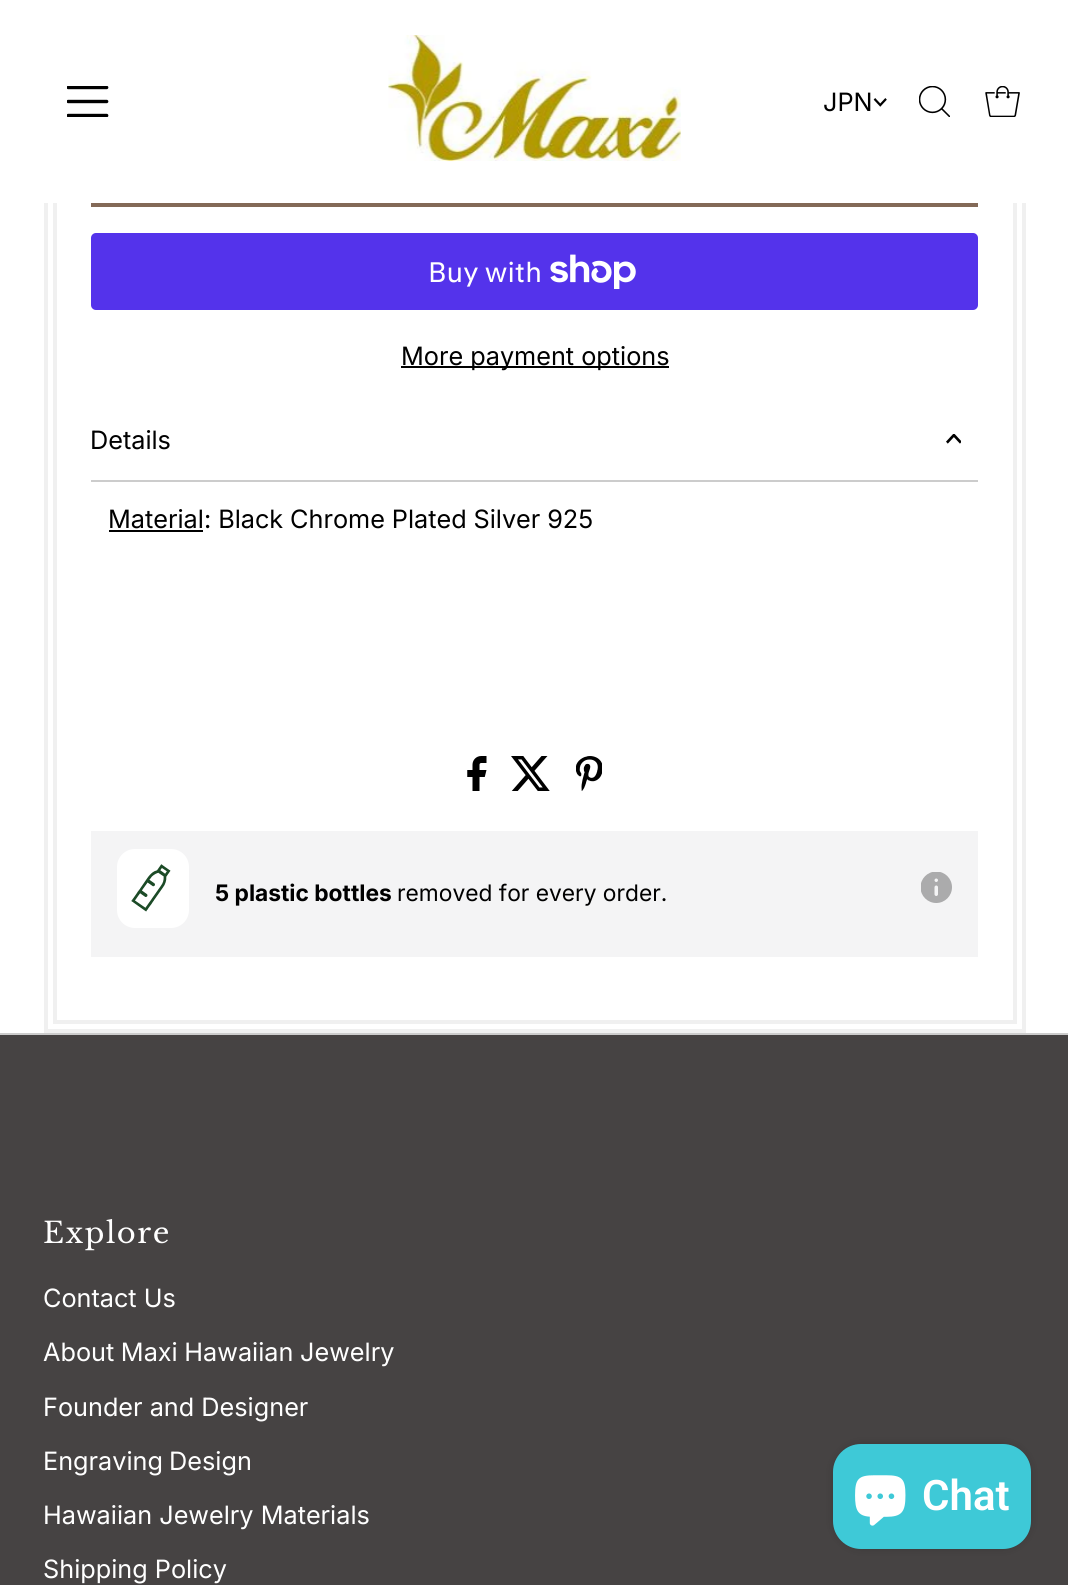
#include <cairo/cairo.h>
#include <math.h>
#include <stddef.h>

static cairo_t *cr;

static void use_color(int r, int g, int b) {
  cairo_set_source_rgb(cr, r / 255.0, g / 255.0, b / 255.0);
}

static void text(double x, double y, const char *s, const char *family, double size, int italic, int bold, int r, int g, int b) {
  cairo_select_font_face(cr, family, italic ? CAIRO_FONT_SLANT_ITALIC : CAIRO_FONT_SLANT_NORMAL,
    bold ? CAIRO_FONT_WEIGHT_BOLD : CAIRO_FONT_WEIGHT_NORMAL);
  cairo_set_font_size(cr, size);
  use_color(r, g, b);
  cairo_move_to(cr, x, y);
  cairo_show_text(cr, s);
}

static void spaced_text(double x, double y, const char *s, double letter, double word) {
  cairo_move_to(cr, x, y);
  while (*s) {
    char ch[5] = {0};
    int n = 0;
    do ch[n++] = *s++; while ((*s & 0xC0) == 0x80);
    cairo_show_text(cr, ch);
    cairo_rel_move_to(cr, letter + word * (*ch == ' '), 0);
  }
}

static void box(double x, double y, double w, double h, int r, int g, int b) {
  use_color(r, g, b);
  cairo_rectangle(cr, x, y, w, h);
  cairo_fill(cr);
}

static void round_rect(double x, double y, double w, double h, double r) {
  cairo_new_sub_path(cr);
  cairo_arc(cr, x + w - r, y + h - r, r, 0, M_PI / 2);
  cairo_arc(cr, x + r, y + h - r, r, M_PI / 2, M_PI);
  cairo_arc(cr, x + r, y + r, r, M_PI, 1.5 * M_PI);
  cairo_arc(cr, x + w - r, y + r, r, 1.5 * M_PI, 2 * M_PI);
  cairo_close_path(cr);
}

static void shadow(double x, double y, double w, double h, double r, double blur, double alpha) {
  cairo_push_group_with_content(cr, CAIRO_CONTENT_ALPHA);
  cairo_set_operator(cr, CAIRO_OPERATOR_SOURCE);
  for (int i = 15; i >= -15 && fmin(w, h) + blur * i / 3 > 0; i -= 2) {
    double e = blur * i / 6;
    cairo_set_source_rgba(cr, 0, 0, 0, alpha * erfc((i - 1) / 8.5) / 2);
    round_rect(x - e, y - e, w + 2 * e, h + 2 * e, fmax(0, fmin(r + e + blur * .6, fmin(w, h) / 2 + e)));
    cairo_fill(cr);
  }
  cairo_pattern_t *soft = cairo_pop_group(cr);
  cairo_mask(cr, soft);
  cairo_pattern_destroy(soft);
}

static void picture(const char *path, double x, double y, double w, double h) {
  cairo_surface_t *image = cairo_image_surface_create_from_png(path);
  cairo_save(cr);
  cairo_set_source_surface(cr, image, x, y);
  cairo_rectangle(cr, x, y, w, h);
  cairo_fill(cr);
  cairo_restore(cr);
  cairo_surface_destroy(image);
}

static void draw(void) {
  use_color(255, 255, 255);
  cairo_paint(cr);
  cairo_rectangle(cr, 46, -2, 978, 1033);
  use_color(240, 240, 240);
  cairo_set_line_width(cr, 4);
  cairo_stroke(cr);
  cairo_rectangle(cr, 55, -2, 960, 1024);
  cairo_stroke(cr);
  box(44, 0, 982, 203, 255, 255, 255);
  picture("img_01.png", 67, 86, 42, 31);
  picture("img_02.png", 388, 35, 293, 127);
  picture("img_03.png", 873, 98, 14, 9);
  picture("img_04.png", 919, 86, 31, 31);
  picture("img_05.png", 985, 86, 35, 31);
  box(91, 203, 887, 4, 131, 105, 87);
  use_color(84, 51, 235);
  round_rect(91, 233, 887, 77, 5);
  cairo_fill(cr);
  picture("img_06.png", 550, 254, 86, 35);
  box(401, 366, 268, 2, 0, 0, 0);
  box(91, 480, 887, 2, 204, 204, 204);
  picture("img_07.png", 946, 434, 15, 10);
  box(109, 530, 94, 2, 0, 0, 0);
  picture("img_08.png", 467, 756, 20, 35);
  picture("img_09.png", 511, 756, 39, 35);
  picture("img_10.png", 576, 756, 26, 35);
  box(91, 831, 887, 126, 244, 244, 245);
  use_color(255, 255, 255);
  round_rect(117, 849, 72, 79, 18);
  cairo_fill(cr);
  picture("img_11.png", 131, 864, 40, 48);
  picture("img_12.png", 921, 872, 31, 31);
  box(0, 1035, 1068, 550, 70, 67, 67);
  box(0, 1033, 1068, 2, 204, 204, 204);
  use_color(0, 0, 0);
  shadow(833, 1444, 198, 105, 28, 4.5, 0.15);
  use_color(62, 201, 215);
  round_rect(833, 1444, 198, 105, 28);
  cairo_fill(cr);
  picture("img_13.png", 855, 1475, 51, 51);
  text(823, 111, "JPN", "Inter", 25.25, 0, 0, 0, 0, 0);
  text(428, 282, "Buy with", "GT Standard", 28, 0, 0, 255, 255, 255);
  text(401, 365, "More payment options", "Inter", 25.25, 0, 0, 0, 0, 0);
  text(90, 449, "Details", "Inter", 25.25, 0, 0, 0, 0, 0);
  text(108, 528, "Material", "Inter", 25.25, 0, 0, 0, 0, 0);
  spaced_text(204, 528, ": Black Chrome Plated Silver 925", 0, -0.25);
  text(215, 901, "5 plastic bottles", "Inter", 22.75, 0, 1, 0, 0, 0);
  text(397, 901, "removed for every order.", "Inter", 22.75, 0, 0, 0, 0, 0);
  cairo_select_font_face(cr, "Libre Baskerville", CAIRO_FONT_SLANT_NORMAL, CAIRO_FONT_WEIGHT_NORMAL);
  cairo_set_font_size(cr, 29);
  use_color(255, 255, 255);
  spaced_text(43, 1243, "Explore", 1.5, 0);
  text(43, 1307, "Contact Us", "Inter", 25.25, 0, 0, 255, 255, 255);
  spaced_text(43, 1361, "About Maxi Hawaiian Jewelry", 0, -0.5);
  text(43, 1416, "Founder and Designer", "Inter", 25.25, 0, 0, 255, 255, 255);
  spaced_text(43, 1470, "Engraving Design", 0, -1);
  text(43, 1524, "Hawaiian Jewelry Materials", "Inter", 25.25, 0, 0, 255, 255, 255);
  text(43, 1578, "Shipping Policy", "Inter", 25.25, 0, 0, 255, 255, 255);
  text(922, 1510, "Chat", "Roboto SemiBold", 42, 0, 0, 255, 255, 255);
}

int main(void) {
  cairo_surface_t *surface = cairo_image_surface_create(CAIRO_FORMAT_RGB24, 1068, 1585);
  cr = cairo_create(surface);
  cairo_font_options_t *options = cairo_font_options_create();
  cairo_font_options_set_hint_metrics(options, CAIRO_HINT_METRICS_OFF);
  cairo_font_options_set_hint_style(options, CAIRO_HINT_STYLE_NONE);
  cairo_set_font_options(cr, options);
  cairo_set_miter_limit(cr, 4);
  draw();
  cairo_surface_write_to_png(surface, "out.png");
  cairo_font_options_destroy(options);
  cairo_destroy(cr);
  cairo_surface_destroy(surface);
  return 0;
}
